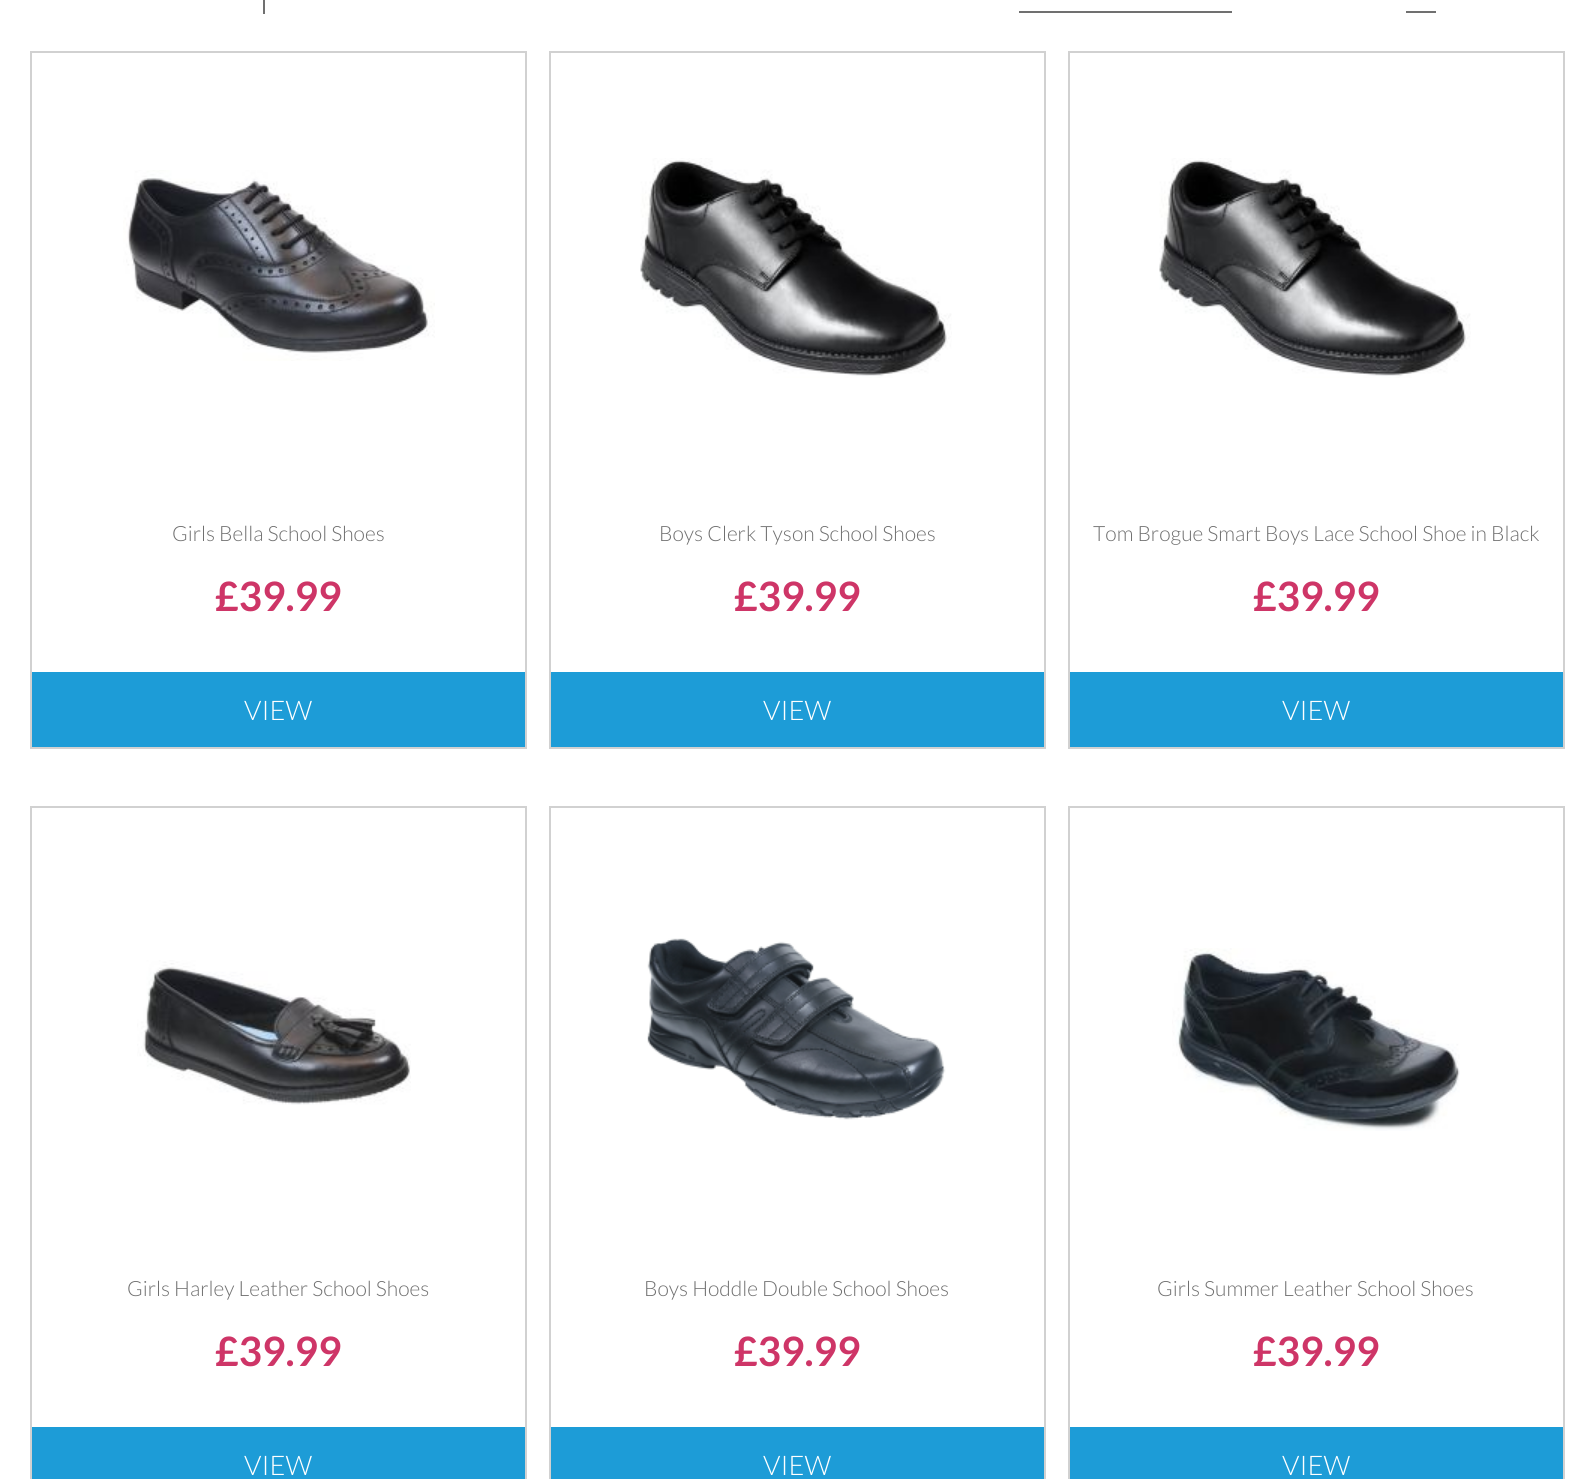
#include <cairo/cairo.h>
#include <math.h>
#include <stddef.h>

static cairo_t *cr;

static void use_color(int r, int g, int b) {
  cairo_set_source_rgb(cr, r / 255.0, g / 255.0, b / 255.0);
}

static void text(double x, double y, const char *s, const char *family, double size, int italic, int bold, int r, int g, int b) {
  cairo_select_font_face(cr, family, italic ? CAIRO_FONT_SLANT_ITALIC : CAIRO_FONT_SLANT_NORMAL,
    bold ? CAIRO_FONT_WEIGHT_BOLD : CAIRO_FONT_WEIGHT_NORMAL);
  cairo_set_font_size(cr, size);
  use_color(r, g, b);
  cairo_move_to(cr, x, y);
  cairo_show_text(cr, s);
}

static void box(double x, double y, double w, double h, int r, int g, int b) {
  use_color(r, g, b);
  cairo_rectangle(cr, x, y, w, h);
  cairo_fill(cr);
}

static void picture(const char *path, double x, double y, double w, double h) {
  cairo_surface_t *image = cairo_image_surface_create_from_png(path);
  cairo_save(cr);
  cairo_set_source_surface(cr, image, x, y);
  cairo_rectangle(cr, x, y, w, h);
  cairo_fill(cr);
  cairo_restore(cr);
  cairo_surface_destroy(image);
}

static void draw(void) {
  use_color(255, 255, 255);
  cairo_paint(cr);
  box(263, 0, 2, 14, 112, 112, 112);
  box(1019, 11, 213, 2, 112, 112, 112);
  box(1406, 11, 30, 2, 112, 112, 112);
  cairo_rectangle(cr, 31, 52, 495, 696);
  use_color(209, 209, 209);
  cairo_stroke(cr);
  picture("img_01.png", 123, 170, 312, 191);
  box(32, 672, 493, 75, 29, 156, 215);
  cairo_rectangle(cr, 550, 52, 495, 696);
  use_color(209, 209, 209);
  cairo_stroke(cr);
  picture("img_02.png", 640, 158, 312, 220);
  box(551, 672, 493, 75, 29, 156, 215);
  cairo_rectangle(cr, 1069, 52, 495, 696);
  use_color(209, 209, 209);
  cairo_stroke(cr);
  picture("img_03.png", 1159, 158, 312, 220);
  box(1070, 672, 493, 75, 29, 156, 215);
  cairo_rectangle(cr, 31, 807, 495, 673);
  use_color(209, 209, 209);
  cairo_stroke(cr);
  picture("img_04.png", 137, 960, 274, 145);
  box(32, 1427, 493, 52, 29, 156, 215);
  cairo_rectangle(cr, 550, 807, 495, 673);
  use_color(209, 209, 209);
  cairo_stroke(cr);
  picture("img_05.png", 647, 938, 299, 182);
  box(551, 1427, 493, 52, 29, 156, 215);
  cairo_rectangle(cr, 1069, 807, 495, 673);
  use_color(209, 209, 209);
  cairo_stroke(cr);
  picture("img_06.png", 1172, 948, 288, 183);
  box(1070, 1427, 493, 52, 29, 156, 215);
  text(172, 541, "Girls Bella School Shoes", "Lato Light", 21, 0, 0, 112, 112, 112);
  text(215, 611, "£39.99", "Lato", 40.5, 0, 1, 206, 53, 103);
  text(244, 720, "VIEW", "Lato Light", 27, 0, 0, 255, 255, 255);
  text(659, 541, "Boys Clerk Tyson School Shoes", "Lato Light", 21, 0, 0, 112, 112, 112);
  text(734, 611, "£39.99", "Lato", 40.5, 0, 1, 206, 53, 103);
  text(763, 720, "VIEW", "Lato Light", 27, 0, 0, 255, 255, 255);
  text(1093, 541, "Tom Brogue Smart Boys Lace School Shoe in Black", "Lato Light", 21, 0, 0, 112, 112, 112);
  text(1253, 611, "£39.99", "Lato", 40.5, 0, 1, 206, 53, 103);
  text(1282, 720, "VIEW", "Lato Light", 27, 0, 0, 255, 255, 255);
  text(127, 1296, "Girls Harley Leather School Shoes", "Lato Light", 21, 0, 0, 112, 112, 112);
  text(215, 1366, "£39.99", "Lato", 40.5, 0, 1, 206, 53, 103);
  text(244, 1475, "VIEW", "Lato Light", 27, 0, 0, 255, 255, 255);
  text(644, 1296, "Boys Hoddle Double School Shoes", "Lato Light", 21, 0, 0, 112, 112, 112);
  text(734, 1366, "£39.99", "Lato", 40.5, 0, 1, 206, 53, 103);
  text(763, 1475, "VIEW", "Lato Light", 27, 0, 0, 255, 255, 255);
  text(1157, 1296, "Girls Summer Leather School Shoes", "Lato Light", 21, 0, 0, 112, 112, 112);
  text(1253, 1366, "£39.99", "Lato", 40.5, 0, 1, 206, 53, 103);
  text(1282, 1475, "VIEW", "Lato Light", 27, 0, 0, 255, 255, 255);
}

int main(void) {
  cairo_surface_t *surface = cairo_image_surface_create(CAIRO_FORMAT_RGB24, 1594, 1479);
  cr = cairo_create(surface);
  cairo_font_options_t *options = cairo_font_options_create();
  cairo_font_options_set_hint_metrics(options, CAIRO_HINT_METRICS_OFF);
  cairo_font_options_set_hint_style(options, CAIRO_HINT_STYLE_NONE);
  cairo_set_font_options(cr, options);
  cairo_set_miter_limit(cr, 4);
  draw();
  cairo_surface_write_to_png(surface, "out.png");
  cairo_font_options_destroy(options);
  cairo_destroy(cr);
  cairo_surface_destroy(surface);
  return 0;
}
